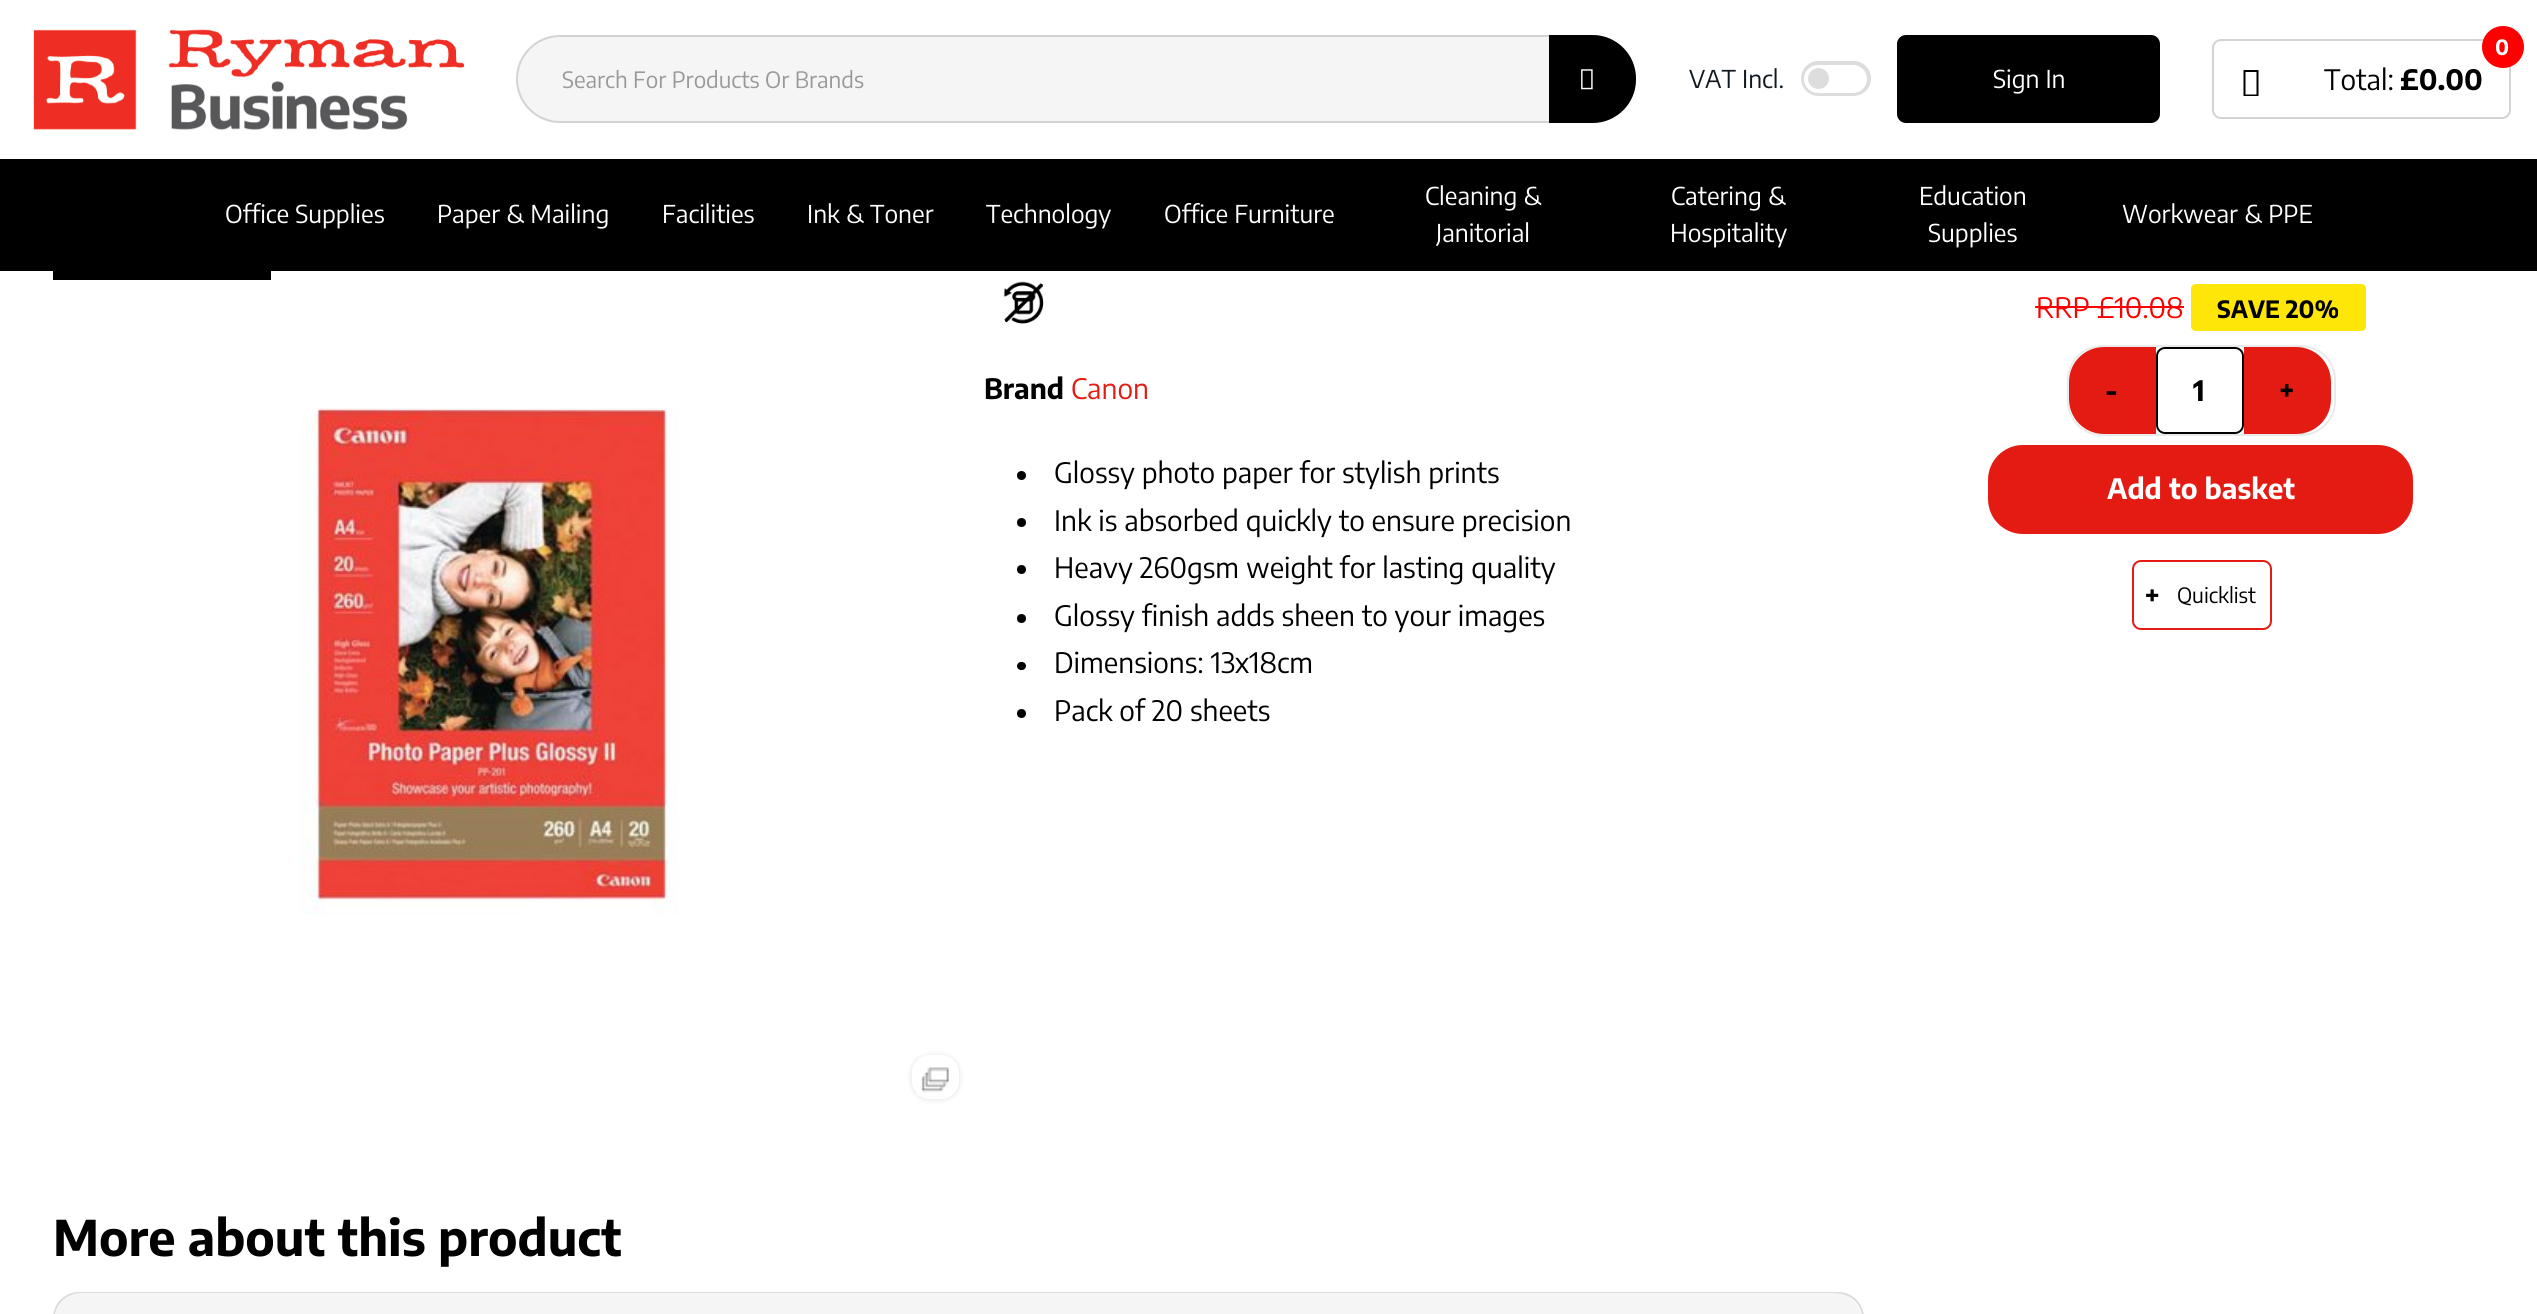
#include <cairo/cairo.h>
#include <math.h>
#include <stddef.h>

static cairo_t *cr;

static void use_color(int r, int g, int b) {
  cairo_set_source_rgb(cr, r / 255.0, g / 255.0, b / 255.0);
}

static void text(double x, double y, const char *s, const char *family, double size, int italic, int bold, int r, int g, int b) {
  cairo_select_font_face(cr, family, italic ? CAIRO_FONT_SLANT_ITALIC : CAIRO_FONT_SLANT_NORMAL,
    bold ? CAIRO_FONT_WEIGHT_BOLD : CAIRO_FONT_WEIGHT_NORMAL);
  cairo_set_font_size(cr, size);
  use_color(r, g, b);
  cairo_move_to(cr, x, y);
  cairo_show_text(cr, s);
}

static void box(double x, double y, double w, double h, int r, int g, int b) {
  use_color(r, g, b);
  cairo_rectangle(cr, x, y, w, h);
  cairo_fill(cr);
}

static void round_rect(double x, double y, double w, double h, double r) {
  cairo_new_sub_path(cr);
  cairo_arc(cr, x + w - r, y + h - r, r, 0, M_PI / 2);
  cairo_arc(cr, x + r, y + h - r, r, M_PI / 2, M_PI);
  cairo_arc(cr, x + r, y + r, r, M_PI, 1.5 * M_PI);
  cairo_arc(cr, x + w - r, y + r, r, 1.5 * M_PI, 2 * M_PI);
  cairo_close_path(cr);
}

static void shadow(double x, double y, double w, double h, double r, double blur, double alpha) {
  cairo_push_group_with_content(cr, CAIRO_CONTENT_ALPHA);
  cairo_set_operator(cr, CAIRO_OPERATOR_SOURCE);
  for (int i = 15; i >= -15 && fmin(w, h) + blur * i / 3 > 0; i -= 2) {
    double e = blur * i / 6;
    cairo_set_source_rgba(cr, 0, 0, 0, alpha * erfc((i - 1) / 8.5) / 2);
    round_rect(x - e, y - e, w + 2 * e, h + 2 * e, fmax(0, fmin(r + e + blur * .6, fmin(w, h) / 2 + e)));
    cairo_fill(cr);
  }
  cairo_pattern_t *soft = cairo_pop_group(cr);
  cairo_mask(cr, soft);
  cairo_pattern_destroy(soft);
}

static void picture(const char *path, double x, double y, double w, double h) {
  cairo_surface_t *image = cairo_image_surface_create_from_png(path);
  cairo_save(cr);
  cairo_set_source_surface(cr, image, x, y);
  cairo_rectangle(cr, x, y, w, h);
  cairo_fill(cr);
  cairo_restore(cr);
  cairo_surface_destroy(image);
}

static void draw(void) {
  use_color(255, 255, 255);
  cairo_paint(cr);
  picture("img_01.png", 33, 29, 431, 101);
  use_color(245, 245, 245);
  round_rect(517, 36, 1118, 86, 43);
  cairo_fill_preserve(cr);
  use_color(211, 211, 211);
  cairo_stroke(cr);
  use_color(0, 0, 0);
  cairo_new_path(cr);
  cairo_move_to(cr, 1549, 35);
  cairo_line_to(cr, 1592.5, 35);
  cairo_curve_to(cr, 1616.5, 35, 1636, 54.5, 1636, 78.5);
  cairo_line_to(cr, 1636, 79.5);
  cairo_curve_to(cr, 1636, 103.5, 1616.5, 123, 1592.5, 123);
  cairo_line_to(cr, 1549, 123);
  cairo_close_path(cr);
  cairo_fill(cr);
  picture("img_02.png", 1581, 69, 12, 21);
  use_color(221, 221, 221);
  round_rect(1801, 61, 70, 35, 17.5);
  cairo_fill(cr);
  use_color(255, 255, 255);
  round_rect(1804, 65, 63, 28, 14);
  cairo_fill(cr);
  use_color(221, 221, 221);
  cairo_arc(cr, 1818.5, 78.5, 10.5, 0, 2 * M_PI);
  cairo_fill(cr);
  use_color(0, 0, 0);
  round_rect(1899, 37, 259, 84, 7);
  cairo_fill_preserve(cr);
  cairo_set_line_width(cr, 4);
  cairo_stroke(cr);
  round_rect(2213, 40, 297, 78, 8);
  use_color(211, 211, 211);
  cairo_set_line_width(cr, 2);
  cairo_stroke(cr);
  use_color(255, 0, 0);
  cairo_arc(cr, 2503, 47, 21, 0, 2 * M_PI);
  cairo_fill(cr);
  use_color(0, 0, 0);
  cairo_new_path(cr);
  cairo_move_to(cr, 2243.5, 96);
  cairo_line_to(cr, 2243.5, 70);
  cairo_line_to(cr, 2258.5, 70);
  cairo_line_to(cr, 2258.5, 96);
  cairo_close_path(cr);
  cairo_move_to(cr, 2245.5, 94.5);
  cairo_line_to(cr, 2256.5, 94.5);
  cairo_line_to(cr, 2256.5, 72);
  cairo_line_to(cr, 2245.5, 72);
  cairo_close_path(cr);
  cairo_fill(cr);
  box(0, 159, 2537, 112, 0, 0, 0);
  box(53, 271, 218, 9, 0, 0, 0);
  picture("img_03.png", 299, 408, 379, 507);
  use_color(0, 0, 0);
  shadow(910, 1054, 51, 47, 19, 2, 0.07);
  use_color(255, 255, 255);
  round_rect(912, 1055, 47, 44, 18);
  cairo_fill(cr);
  picture("img_04.png", 917, 1067, 32, 29);
  picture("img_05.png", 1003, 281, 41, 43);
  use_color(0, 0, 0);
  cairo_arc(cr, 1021.5, 475.5, 4.5, 0, 2 * M_PI);
  cairo_fill(cr);
  cairo_arc(cr, 1021.5, 522.5, 4.5, 0, 2 * M_PI);
  cairo_fill(cr);
  cairo_arc(cr, 1021.5, 569.5, 4.5, 0, 2 * M_PI);
  cairo_fill(cr);
  cairo_arc(cr, 1021.5, 618.5, 4.5, 0, 2 * M_PI);
  cairo_fill(cr);
  round_rect(1017, 662, 9, 8, 4);
  cairo_fill(cr);
  cairo_arc(cr, 1021.5, 713.5, 4.5, 0, 2 * M_PI);
  cairo_fill(cr);
  round_rect(54, 1293, 1809, 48, 25);
  use_color(219, 219, 219);
  cairo_stroke(cr);
  use_color(245, 245, 245);
  round_rect(54, 1293, 1808, 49, 28);
  cairo_fill(cr);
  box(2035, 306, 149, 2, 255, 0, 0);
  use_color(254, 230, 9);
  cairo_new_path(cr);
  cairo_move_to(cr, 2196, 284);
  cairo_line_to(cr, 2286, 284);
  cairo_line_to(cr, 2286, 331);
  cairo_line_to(cr, 2196, 331);
  cairo_curve_to(cr, 2193, 331, 2191, 329, 2191, 326);
  cairo_line_to(cr, 2191, 289);
  cairo_curve_to(cr, 2191, 286, 2193, 284, 2196, 284);
  cairo_close_path(cr);
  cairo_fill(cr);
  box(2286, 284, 28, 47, 254, 230, 9);
  cairo_new_path(cr);
  cairo_move_to(cr, 2314, 284);
  cairo_line_to(cr, 2361, 284);
  cairo_curve_to(cr, 2364, 284, 2366, 286, 2366, 289);
  cairo_line_to(cr, 2366, 326);
  cairo_curve_to(cr, 2366, 329, 2364, 331, 2361, 331);
  cairo_line_to(cr, 2314, 331);
  cairo_close_path(cr);
  cairo_fill(cr);
  round_rect(2068, 346, 267, 89, 34);
  use_color(234, 234, 234);
  cairo_stroke(cr);
  use_color(228, 27, 19);
  cairo_new_path(cr);
  cairo_move_to(cr, 2104, 347);
  cairo_line_to(cr, 2156, 347);
  cairo_line_to(cr, 2156, 434);
  cairo_line_to(cr, 2104, 434);
  cairo_curve_to(cr, 2084.5, 434, 2069, 418.5, 2069, 399);
  cairo_line_to(cr, 2069, 382);
  cairo_curve_to(cr, 2069, 362.5, 2084.5, 347, 2104, 347);
  cairo_close_path(cr);
  cairo_fill(cr);
  round_rect(2157, 348, 86, 85, 8);
  use_color(0, 0, 0);
  cairo_stroke(cr);
  use_color(228, 27, 19);
  cairo_new_path(cr);
  cairo_move_to(cr, 2244, 347);
  cairo_line_to(cr, 2296, 347);
  cairo_curve_to(cr, 2315.5, 347, 2331, 362.5, 2331, 382);
  cairo_line_to(cr, 2331, 399);
  cairo_curve_to(cr, 2331, 418.5, 2315.5, 434, 2296, 434);
  cairo_line_to(cr, 2244, 434);
  cairo_close_path(cr);
  cairo_fill(cr);
  round_rect(1989, 446, 423, 87, 34);
  cairo_fill_preserve(cr);
  cairo_stroke(cr);
  round_rect(2133, 561, 138, 68, 8);
  cairo_stroke(cr);
  text(562, 88, "Search For Products Or Brands", "Encode Sans Condensed", 22.4, 0, 0, 153, 153, 153);
  text(1689, 88, "VAT Incl.", "Encode Sans Condensed", 24.5, 0, 0, 16, 24, 32);
  text(1993, 88, "Sign In", "Encode Sans Condensed", 24.5, 0, 0, 255, 255, 255);
  text(2495, 55, "0", "Encode Sans Condensed", 21, 0, 1, 255, 255, 255);
  text(2324, 90, "Total:", "Encode Sans Condensed", 28, 0, 0, 0, 0, 0);
  text(2400, 90, "£0.00", "Encode Sans Condensed", 28, 0, 1, 0, 0, 0);
  text(225, 223, "Office Supplies", "Encode Sans Condensed", 24.5, 0, 0, 255, 255, 255);
  text(437, 223, "Paper & Mailing", "Encode Sans Condensed", 24.5, 0, 0, 255, 255, 255);
  text(662, 223, "Facilities", "Encode Sans Condensed", 24.5, 0, 0, 255, 255, 255);
  text(807, 223, "Ink & Toner", "Encode Sans Condensed", 24.5, 0, 0, 255, 255, 255);
  text(986, 223, "Technology", "Encode Sans Condensed", 24.5, 0, 0, 255, 255, 255);
  text(1164, 223, "Office Furniture", "Encode Sans Condensed", 24.5, 0, 0, 255, 255, 255);
  text(1425, 205, "Cleaning &", "Encode Sans Condensed", 24.5, 0, 0, 255, 255, 255);
  text(1436, 242, "Janitorial", "Encode Sans Condensed", 24.5, 0, 0, 255, 255, 255);
  text(1671, 205, "Catering &", "Encode Sans Condensed", 24.5, 0, 0, 255, 255, 255);
  text(1670, 242, "Hospitality", "Encode Sans Condensed", 24.5, 0, 0, 255, 255, 255);
  text(1919, 205, "Education", "Encode Sans Condensed", 24.5, 0, 0, 255, 255, 255);
  text(1928, 242, "Supplies", "Encode Sans Condensed", 24.5, 0, 0, 255, 255, 255);
  text(2122, 223, "Workwear & PPE", "Encode Sans Condensed", 24.5, 0, 0, 255, 255, 255);
  text(984, 399, "Brand", "Encode Sans Condensed", 28, 0, 1, 0, 0, 0);
  text(1071, 399, "Canon", "Encode Sans Condensed", 28, 0, 0, 228, 27, 19);
  text(1054, 483, "Glossy photo paper for stylish prints", "Encode Sans Condensed", 28, 0, 0, 0, 0, 0);
  text(1054, 531, "Ink is absorbed quickly to ensure precision", "Encode Sans Condensed", 28, 0, 0, 0, 0, 0);
  text(1054, 578, "Heavy 260gsm weight for lasting quality", "Encode Sans Condensed", 28, 0, 0, 0, 0, 0);
  text(1054, 626, "Glossy finish adds sheen to your images", "Encode Sans Condensed", 28, 0, 0, 0, 0, 0);
  text(1054, 673, "Dimensions: 13x18cm", "Encode Sans Condensed", 28, 0, 0, 0, 0, 0);
  text(1054, 721, "Pack of 20 sheets", "Encode Sans Condensed", 28, 0, 0, 0, 0, 0);
  text(53, 1256, "More about this product", "Encode Sans Condensed", 49, 0, 1, 0, 0, 0);
  text(2036, 318, "RRP £10.08", "Encode Sans Condensed", 28, 0, 0, 255, 0, 0);
  text(2217, 318, "SAVE 20%", "Encode Sans Condensed", 23.75, 0, 1, 0, 0, 0);
  text(2105, 401, "-", "Encode Sans Condensed", 28, 0, 1, 0, 0, 0);
  text(2193, 401, "1", "Encode Sans Condensed", 28, 0, 1, 0, 0, 0);
  text(2279, 401, "+", "Encode Sans Condensed", 28, 0, 1, 0, 0, 0);
  text(2107, 499, "Add to basket", "Encode Sans Condensed", 28, 0, 1, 255, 255, 255);
  text(2145, 604, "+", "Noto Sans Black", 24.5, 0, 0, 0, 0, 0);
  text(2177, 603, "Quicklist", "Encode Sans Condensed", 21, 0, 0, 0, 0, 0);
}

int main(void) {
  cairo_surface_t *surface = cairo_image_surface_create(CAIRO_FORMAT_RGB24, 2537, 1314);
  cr = cairo_create(surface);
  cairo_font_options_t *options = cairo_font_options_create();
  cairo_font_options_set_hint_metrics(options, CAIRO_HINT_METRICS_OFF);
  cairo_font_options_set_hint_style(options, CAIRO_HINT_STYLE_NONE);
  cairo_set_font_options(cr, options);
  cairo_set_miter_limit(cr, 4);
  draw();
  cairo_surface_write_to_png(surface, "out.png");
  cairo_font_options_destroy(options);
  cairo_destroy(cr);
  cairo_surface_destroy(surface);
  return 0;
}
